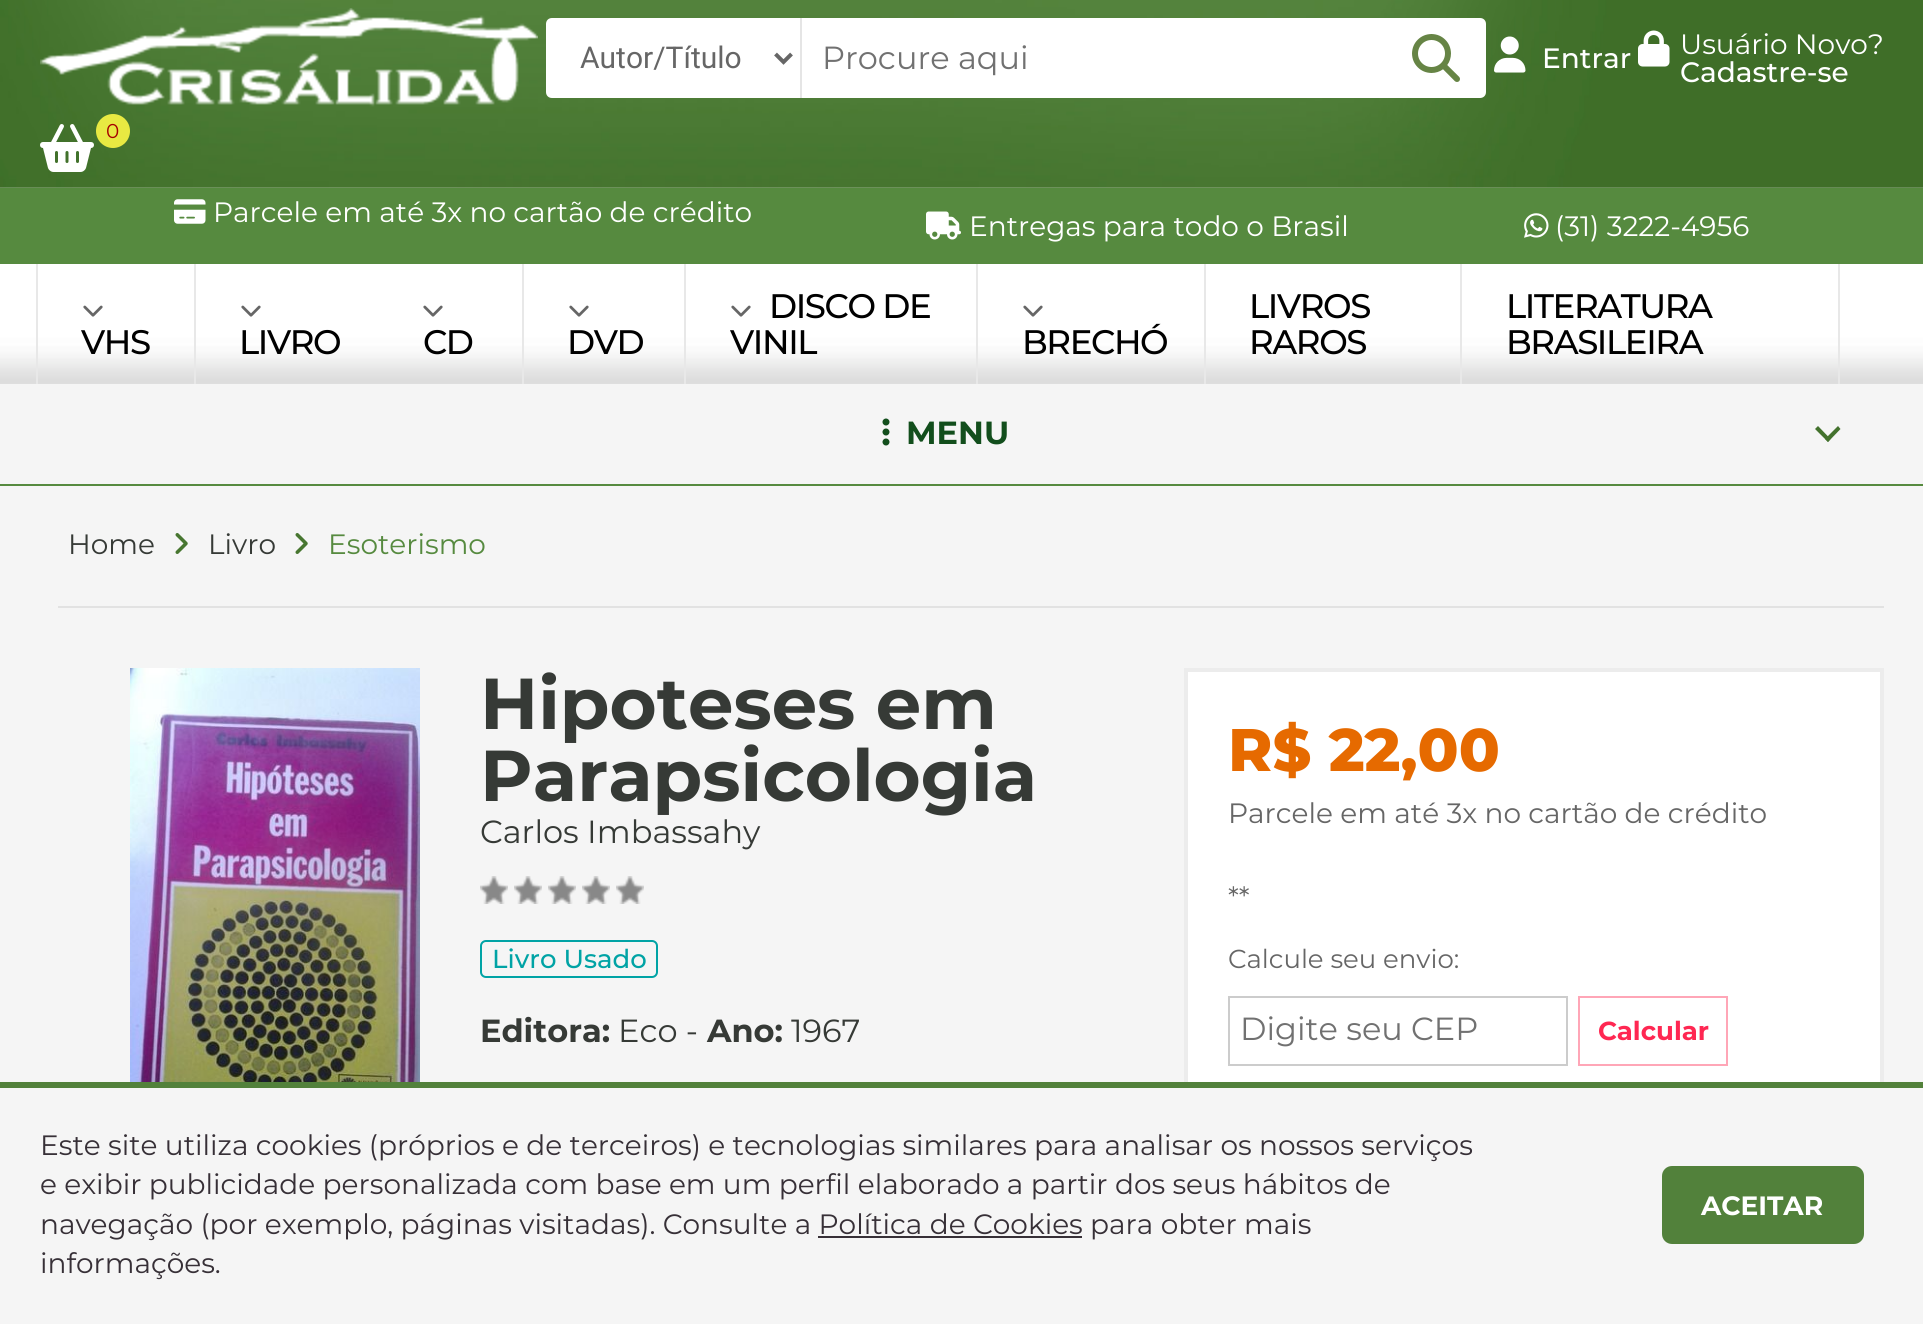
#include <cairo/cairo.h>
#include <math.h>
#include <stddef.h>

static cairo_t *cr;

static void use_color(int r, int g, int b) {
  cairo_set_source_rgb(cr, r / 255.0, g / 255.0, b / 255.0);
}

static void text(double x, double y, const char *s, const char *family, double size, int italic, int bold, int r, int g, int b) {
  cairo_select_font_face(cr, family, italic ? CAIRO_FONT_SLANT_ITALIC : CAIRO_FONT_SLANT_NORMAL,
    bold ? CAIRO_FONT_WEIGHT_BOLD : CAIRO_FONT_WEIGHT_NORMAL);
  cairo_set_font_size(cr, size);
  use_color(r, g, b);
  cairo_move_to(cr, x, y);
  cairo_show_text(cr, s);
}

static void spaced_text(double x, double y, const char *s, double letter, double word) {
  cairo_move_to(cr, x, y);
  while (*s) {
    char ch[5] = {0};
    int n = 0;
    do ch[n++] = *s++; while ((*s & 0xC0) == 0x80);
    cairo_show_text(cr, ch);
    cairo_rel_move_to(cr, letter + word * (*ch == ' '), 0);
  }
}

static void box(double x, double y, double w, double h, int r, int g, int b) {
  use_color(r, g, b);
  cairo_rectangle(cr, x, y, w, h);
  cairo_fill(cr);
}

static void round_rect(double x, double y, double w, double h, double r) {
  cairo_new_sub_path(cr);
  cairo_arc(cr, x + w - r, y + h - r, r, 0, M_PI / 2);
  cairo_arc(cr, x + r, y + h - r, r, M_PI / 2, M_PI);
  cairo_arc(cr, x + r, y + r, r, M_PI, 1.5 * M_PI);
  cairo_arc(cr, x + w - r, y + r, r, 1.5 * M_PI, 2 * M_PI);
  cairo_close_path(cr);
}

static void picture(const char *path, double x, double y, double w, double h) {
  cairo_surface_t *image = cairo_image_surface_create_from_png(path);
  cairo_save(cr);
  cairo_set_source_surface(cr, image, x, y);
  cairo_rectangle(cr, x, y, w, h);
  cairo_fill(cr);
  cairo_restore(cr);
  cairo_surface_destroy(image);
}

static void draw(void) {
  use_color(245, 245, 245);
  cairo_paint(cr);
  picture("img_01.png", 0, 0, 1923, 188);
  picture("img_02.png", 40, 8, 498, 99);
  use_color(255, 255, 255);
  cairo_new_path(cr);
  cairo_move_to(cr, 552, 18);
  cairo_line_to(cr, 802, 18);
  cairo_line_to(cr, 802, 98);
  cairo_line_to(cr, 552, 98);
  cairo_curve_to(cr, 548.5, 98, 546, 95.5, 546, 92);
  cairo_line_to(cr, 546, 24);
  cairo_curve_to(cr, 546, 20.5, 548.5, 18, 552, 18);
  cairo_close_path(cr);
  cairo_fill(cr);
  box(800, 18, 2, 80, 229, 229, 229);
  cairo_new_path(cr);
  cairo_move_to(cr, 775.5, 54);
  cairo_line_to(cr, 783.5, 62);
  cairo_line_to(cr, 791.5, 54);
  use_color(102, 102, 102);
  cairo_set_line_width(cr, 4);
  cairo_stroke(cr);
  use_color(255, 255, 255);
  cairo_new_path(cr);
  cairo_move_to(cr, 802, 18);
  cairo_line_to(cr, 1480, 18);
  cairo_curve_to(cr, 1483.5, 18, 1486, 20.5, 1486, 24);
  cairo_line_to(cr, 1486, 92);
  cairo_curve_to(cr, 1486, 95.5, 1483.5, 98, 1480, 98);
  cairo_line_to(cr, 802, 98);
  cairo_close_path(cr);
  cairo_fill(cr);
  picture("img_03.png", 1412, 34, 48, 48);
  picture("img_04.png", 1494, 36, 32, 37);
  picture("img_05.png", 1638, 30, 32, 37);
  picture("img_06.png", 40, 124, 54, 48);
  use_color(232, 233, 66);
  cairo_arc(cr, 113, 131, 17, 0, 2 * M_PI);
  cairo_fill(cr);
  box(0, 188, 1923, 76, 86, 138, 63);
  picture("img_07.png", 174, 199, 32, 25);
  picture("img_08.png", 926, 211, 35, 29);
  picture("img_09.png", 1524, 213, 25, 25);
  picture("img_10.png", 0, 264, 1923, 120);
  box(36, 264, 2, 120, 232, 232, 232);
  picture("img_11.png", 83, 305, 20, 12);
  box(194, 264, 2, 120, 232, 232, 232);
  picture("img_11.png", 241, 305, 20, 12);
  picture("img_11.png", 423, 305, 20, 12);
  box(522, 264, 2, 120, 232, 232, 232);
  picture("img_11.png", 569, 305, 20, 12);
  box(684, 264, 2, 120, 232, 232, 232);
  picture("img_11.png", 731, 305, 20, 12);
  box(976, 264, 2, 120, 232, 232, 232);
  picture("img_11.png", 1023, 305, 20, 12);
  box(1204, 264, 2, 120, 232, 232, 232);
  box(1460, 264, 2, 120, 232, 232, 232);
  box(1838, 264, 2, 120, 232, 232, 232);
  box(0, 484, 1923, 2, 86, 138, 63);
  picture("img_12.png", 882, 418, 8, 28);
  use_color(67, 114, 45);
  cairo_new_path(cr);
  cairo_move_to(cr, 1818, 426);
  cairo_line_to(cr, 1830.5, 439);
  cairo_line_to(cr, 1828, 442);
  cairo_line_to(cr, 1815, 429);
  cairo_close_path(cr);
  cairo_fill(cr);
  cairo_new_path(cr);
  cairo_move_to(cr, 1825, 439);
  cairo_line_to(cr, 1838, 426);
  cairo_line_to(cr, 1840.5, 429);
  cairo_line_to(cr, 1828, 442);
  cairo_close_path(cr);
  cairo_fill(cr);
  box(58, 606, 1826, 2, 226, 226, 226);
  picture("img_13.png", 175, 533, 13, 21);
  picture("img_13.png", 295, 533, 13, 21);
  picture("img_14.png", 130, 668, 290, 414);
  picture("img_15.png", 480, 876, 28, 28);
  picture("img_15.png", 514, 876, 28, 28);
  picture("img_15.png", 548, 876, 28, 28);
  picture("img_15.png", 582, 876, 28, 28);
  picture("img_15.png", 616, 876, 28, 28);
  round_rect(481, 941, 176, 36, 5);
  use_color(0, 163, 165);
  cairo_set_line_width(cr, 2);
  cairo_stroke(cr);
  box(1188, 672, 692, 410, 255, 255, 255);
  cairo_rectangle(cr, 1186, 670, 696, 646);
  use_color(236, 236, 236);
  cairo_set_line_width(cr, 4);
  cairo_stroke(cr);
  cairo_rectangle(cr, 1229, 997, 338, 68);
  use_color(204, 204, 204);
  cairo_set_line_width(cr, 2);
  cairo_stroke(cr);
  cairo_rectangle(cr, 1579, 997, 148, 68);
  use_color(255, 166, 183);
  cairo_stroke(cr);
  box(1184, 1088, 700, 230, 245, 245, 245);
  box(0, 1082, 1923, 6, 82, 129, 59);
  box(818, 1236, 264, 2, 55, 48, 55);
  use_color(82, 129, 59);
  round_rect(1662, 1166, 202, 78, 10);
  cairo_fill(cr);
  text(580, 68, "Autor/Título", "Roboto", 30, 0, 0, 102, 102, 102);
  text(822, 69, "Procure aqui", "Montserrat", 32, 0, 0, 113, 113, 113);
  text(1542, 68, "Entrar", "Montserrat Medium", 28, 0, 0, 255, 255, 255);
  text(1680, 54, "Usuário Novo?", "Montserrat", 28, 0, 0, 255, 255, 255);
  text(1680, 82, "Cadastre-se", "Montserrat Medium", 28, 0, 0, 255, 255, 255);
  text(106, 138, "0", "Montserrat", 20, 0, 0, 166, 0, 0);
  text(213, 222, "Parcele em até 3x no cartão de crédito", "Montserrat", 28, 0, 0, 255, 255, 255);
  text(969, 236, "Entregas para todo o Brasil", "Montserrat", 28, 0, 0, 255, 255, 255);
  text(1555, 236, "(31) 3222-4956", "Montserrat", 28, 0, 0, 255, 255, 255);
  cairo_select_font_face(cr, "Montserrat Medium", CAIRO_FONT_SLANT_NORMAL, CAIRO_FONT_WEIGHT_NORMAL);
  cairo_set_font_size(cr, 34);
  use_color(0, 0, 0);
  spaced_text(81, 354, "VHS", -1.4, 0);
  spaced_text(239, 354, "LIVRO", -1.4, 0);
  spaced_text(423, 354, "CD", -1.4, 0);
  spaced_text(567, 354, "DVD", -1.4, 0);
  spaced_text(769, 318, "DISCO DE", -1.4, 0);
  spaced_text(730, 354, "VINIL", -1.4, 0);
  spaced_text(1022, 354, "BRECHÓ", -1.4, 0);
  spaced_text(1249, 318, "LIVROS", -1.4, 0);
  spaced_text(1249, 354, "RAROS", -1.4, 0);
  spaced_text(1506, 318, "LITERATURA", -1.4, 0);
  spaced_text(1506, 354, "BRASILEIRA", -1.4, 0);
  text(906, 444, "MENU", "Montserrat", 32, 0, 1, 18, 78, 28);
  text(68, 554, "Home", "Montserrat", 28, 0, 0, 54, 58, 54);
  text(208, 554, "Livro", "Montserrat", 28, 0, 0, 54, 58, 54);
  text(328, 554, "Esoterismo", "Montserrat", 28, 0, 0, 86, 138, 63);
  text(480, 729, "Hipoteses em", "Montserrat", 72, 0, 1, 54, 58, 54);
  text(480, 801, "Parapsicologia", "Montserrat", 72, 0, 1, 54, 58, 54);
  text(480, 843, "Carlos Imbassahy", "Montserrat", 32, 0, 0, 54, 58, 54);
  text(492, 968, "Livro Usado", "Montserrat Medium", 26, 0, 0, 0, 163, 165);
  text(480, 1042, "Editora:", "Montserrat", 32, 0, 1, 54, 58, 54);
  text(618, 1042, "Eco -", "Montserrat", 32, 0, 0, 54, 58, 54);
  text(707, 1042, "Ano:", "Montserrat", 32, 0, 1, 54, 58, 54);
  text(791, 1042, "1967", "Montserrat", 32, 0, 0, 54, 58, 54);
  text(1228, 771, "R$ 22,00", "Montserrat ExtraBold", 60, 0, 0, 230, 106, 0);
  text(1228, 823, "Parcele em até 3x no cartão de crédito", "Montserrat", 28, 0, 0, 102, 102, 102);
  text(1228, 907, "**", "Montserrat", 28, 0, 0, 102, 102, 102);
  text(1228, 968, "Calcule seu envio:", "Montserrat", 26, 0, 0, 102, 102, 102);
  text(1240, 1040, "Digite seu CEP", "Montserrat", 32, 0, 0, 113, 113, 113);
  text(1598, 1040, "Calcular", "Montserrat", 26, 0, 1, 255, 39, 82);
  text(40, 1155, "Este site utiliza cookies (próprios e de terceiros) e tecnologias similares para analisar os nossos serviços", "Montserrat", 28, 0, 0, 55, 48, 55);
  text(40, 1194, "e exibir publicidade personalizada com base em um perfil elaborado a partir dos seus hábitos de", "Montserrat", 28, 0, 0, 55, 48, 55);
  text(40, 1234, "navegação (por exemplo, páginas visitadas). Consulte a Política de Cookies para obter mais", "Montserrat", 28, 0, 0, 55, 48, 55);
  text(40, 1273, "informações.", "Montserrat", 28, 0, 0, 55, 48, 55);
  text(1701, 1215, "ACEITAR", "Montserrat", 26.5, 0, 1, 255, 255, 255);
}

int main(void) {
  cairo_surface_t *surface = cairo_image_surface_create(CAIRO_FORMAT_RGB24, 1923, 1324);
  cr = cairo_create(surface);
  cairo_font_options_t *options = cairo_font_options_create();
  cairo_font_options_set_hint_metrics(options, CAIRO_HINT_METRICS_OFF);
  cairo_font_options_set_hint_style(options, CAIRO_HINT_STYLE_NONE);
  cairo_set_font_options(cr, options);
  cairo_set_miter_limit(cr, 4);
  draw();
  cairo_surface_write_to_png(surface, "out.png");
  cairo_font_options_destroy(options);
  cairo_destroy(cr);
  cairo_surface_destroy(surface);
  return 0;
}
